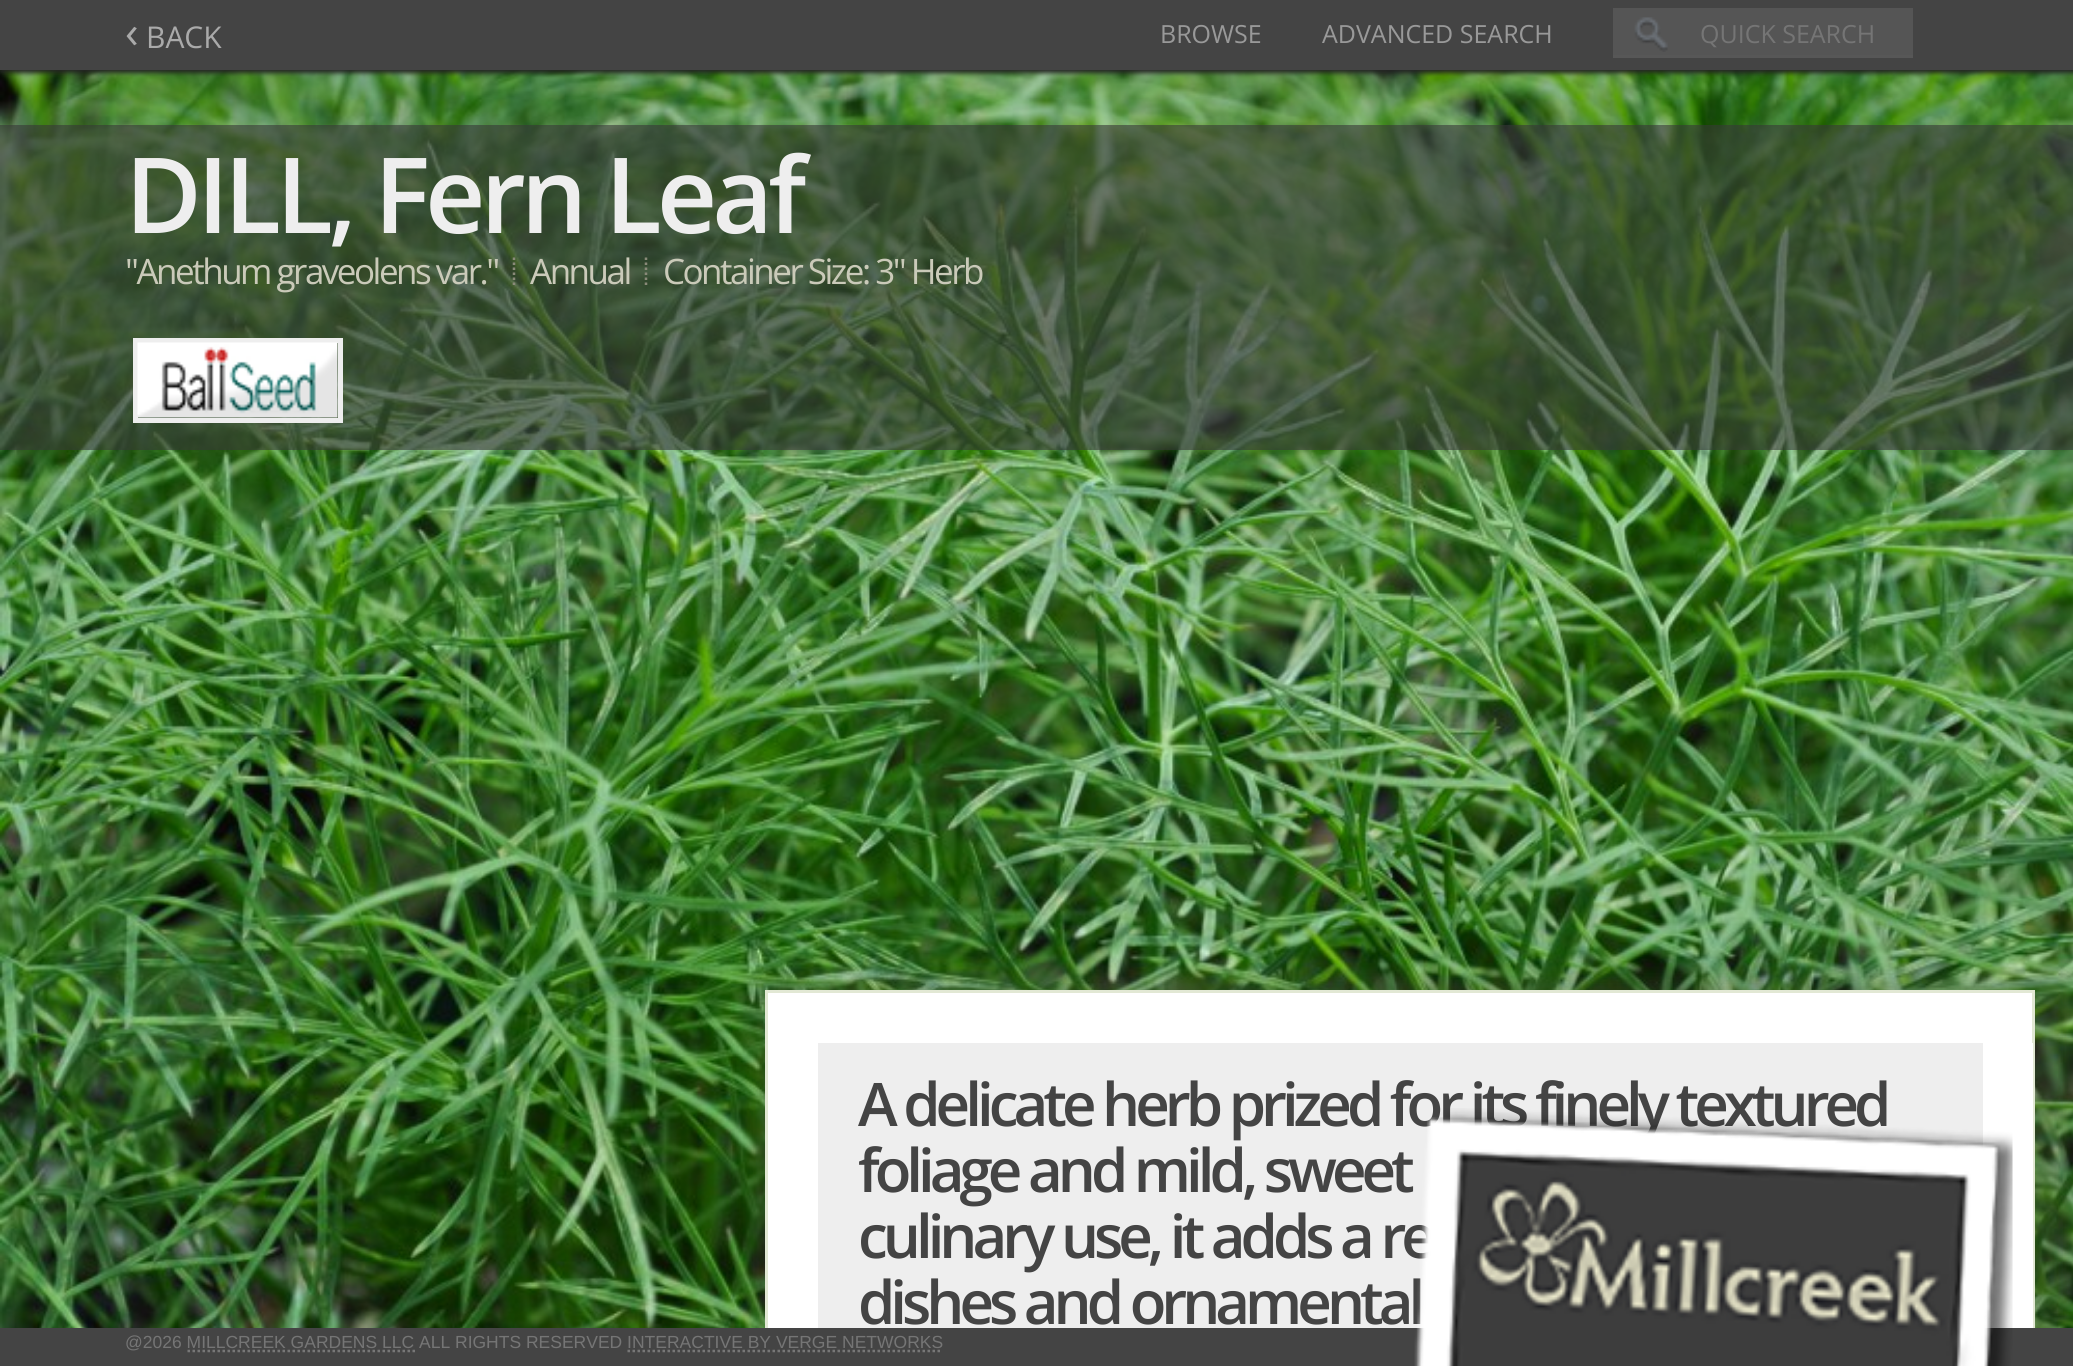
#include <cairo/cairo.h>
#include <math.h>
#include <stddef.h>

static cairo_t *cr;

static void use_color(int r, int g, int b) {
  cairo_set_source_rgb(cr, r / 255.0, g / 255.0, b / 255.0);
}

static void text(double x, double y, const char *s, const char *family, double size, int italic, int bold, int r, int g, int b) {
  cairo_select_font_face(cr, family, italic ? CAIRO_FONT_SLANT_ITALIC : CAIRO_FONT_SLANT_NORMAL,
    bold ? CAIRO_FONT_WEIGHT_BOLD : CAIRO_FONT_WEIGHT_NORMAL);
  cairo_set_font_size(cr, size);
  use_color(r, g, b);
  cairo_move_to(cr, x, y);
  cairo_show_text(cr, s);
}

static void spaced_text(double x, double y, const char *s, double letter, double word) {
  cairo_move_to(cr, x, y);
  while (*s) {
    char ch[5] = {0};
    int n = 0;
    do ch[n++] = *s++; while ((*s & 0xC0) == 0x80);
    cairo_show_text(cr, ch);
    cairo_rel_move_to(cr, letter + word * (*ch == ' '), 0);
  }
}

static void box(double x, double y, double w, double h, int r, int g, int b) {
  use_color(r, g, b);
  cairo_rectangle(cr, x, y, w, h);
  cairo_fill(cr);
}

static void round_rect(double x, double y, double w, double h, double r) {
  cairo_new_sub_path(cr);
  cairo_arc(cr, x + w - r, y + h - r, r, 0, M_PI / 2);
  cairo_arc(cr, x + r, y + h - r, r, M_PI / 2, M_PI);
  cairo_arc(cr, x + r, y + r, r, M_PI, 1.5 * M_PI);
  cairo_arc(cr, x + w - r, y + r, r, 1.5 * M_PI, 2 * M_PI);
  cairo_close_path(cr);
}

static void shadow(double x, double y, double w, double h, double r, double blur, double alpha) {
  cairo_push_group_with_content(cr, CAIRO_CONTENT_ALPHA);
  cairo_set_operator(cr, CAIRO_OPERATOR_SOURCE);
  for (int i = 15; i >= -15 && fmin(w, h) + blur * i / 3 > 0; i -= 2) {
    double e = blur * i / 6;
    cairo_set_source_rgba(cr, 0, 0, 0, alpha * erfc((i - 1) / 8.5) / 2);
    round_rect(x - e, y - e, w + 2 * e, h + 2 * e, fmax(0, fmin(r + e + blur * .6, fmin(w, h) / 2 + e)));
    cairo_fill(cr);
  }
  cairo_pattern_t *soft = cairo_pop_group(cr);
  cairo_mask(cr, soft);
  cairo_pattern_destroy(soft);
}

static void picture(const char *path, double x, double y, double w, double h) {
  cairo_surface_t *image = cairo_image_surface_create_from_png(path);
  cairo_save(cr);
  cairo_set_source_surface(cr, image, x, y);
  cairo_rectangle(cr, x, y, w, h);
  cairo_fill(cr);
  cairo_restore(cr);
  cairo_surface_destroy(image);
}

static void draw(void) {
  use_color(255, 255, 255);
  cairo_paint(cr);
  picture("img_02.png", 0, 70, 2073, 1258);
  use_color(34, 34, 34);
  shadow(0, 3, 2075, 70, 0, 2.5, 1);
  box(0, 0, 2073, 70, 68, 68, 68);
  use_color(87, 87, 87);
  cairo_new_path(cr);
  cairo_move_to(cr, 1613, 55);
  cairo_line_to(cr, 1613, 58);
  cairo_line_to(cr, 1913, 58);
  cairo_line_to(cr, 1913, 10);
  cairo_line_to(cr, 1912, 10);
  cairo_line_to(cr, 1912, 55);
  cairo_close_path(cr);
  cairo_fill(cr);
  box(1613, 8, 300, 47, 85, 85, 85);
  picture("img_01.png", 1634, 17, 34, 35);
  cairo_set_source_rgba(cr, 0.216, 0.216, 0.216, 0.6);
  cairo_rectangle(cr, 0, 125, 2073, 325);
  cairo_fill(cr);
  cairo_new_path(cr);
  cairo_move_to(cr, 514, 257.5);
  cairo_line_to(cr, 514, 287.5);
  use_color(138, 138, 121);
  cairo_set_line_width(cr, 2.5);
  cairo_set_dash(cr, (double[]){2.5, 2.5}, 2, 0);
  cairo_stroke(cr);
  cairo_new_path(cr);
  cairo_move_to(cr, 646, 257.5);
  cairo_line_to(cr, 646, 287.5);
  cairo_stroke(cr);
  cairo_rectangle(cr, 135.5, 340.5, 205, 80);
  use_color(238, 238, 238);
  cairo_set_line_width(cr, 5);
  cairo_set_dash(cr, NULL, 0, 0);
  cairo_stroke(cr);
  picture("img_03.png", 137, 342, 201, 76);
  use_color(78, 80, 65);
  shadow(758, 978, 1310, 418, 0, 10, 0.3);
  box(768, 993, 1264, 50, 255, 255, 255);
  cairo_rectangle(cr, 766.5, 991.5, 1267, 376);
  use_color(226, 232, 212);
  cairo_set_line_width(cr, 3);
  cairo_stroke(cr);
  box(768, 1043, 1265, 285, 255, 255, 255);
  box(818, 1043, 1165, 285, 238, 238, 238);
  box(0, 1328, 2073, 38, 68, 68, 68);
  text(125, 48, "‹", "Open Sans", 45, 0, 0, 170, 170, 170);
  text(146, 48, "BACK", "Open Sans", 30, 0, 0, 170, 170, 170);
  text(1160, 43, "BROWSE", "Open Sans", 25, 0, 0, 153, 153, 153);
  text(1322, 43, "ADVANCED SEARCH", "Open Sans", 25, 0, 0, 153, 153, 153);
  text(1700, 43, "QUICK SEARCH", "Open Sans", 25, 0, 0, 117, 117, 117);
  cairo_select_font_face(cr, "Open Sans SemiBold", CAIRO_FONT_SLANT_NORMAL, CAIRO_FONT_WEIGHT_NORMAL);
  cairo_set_font_size(cr, 105);
  use_color(238, 238, 238);
  spaced_text(125, 233, "DILL, Fern Leaf", -5, 0);
  cairo_select_font_face(cr, "Open Sans", CAIRO_FONT_SLANT_NORMAL, CAIRO_FONT_WEIGHT_NORMAL);
  cairo_set_font_size(cr, 35);
  use_color(202, 202, 185);
  spaced_text(125, 284, "\"Anethum graveolens var.\"", -2.5, 0);
  spaced_text(530, 284, "Annual", -2.5, 0);
  spaced_text(663, 284, "Container Size: 3\" Herb", -2.5, 0);
  cairo_select_font_face(cr, "Open Sans SemiBold", CAIRO_FONT_SLANT_NORMAL, CAIRO_FONT_WEIGHT_NORMAL);
  cairo_set_font_size(cr, 60);
  use_color(68, 68, 68);
  spaced_text(858, 1126, "A delicate herb prized for its finely textured", -5, 0);
  spaced_text(858, 1192, "foliage and mild, sweet", -5, 0);
  spaced_text(858, 1258, "culinary use, it adds a re", -5, 0);
  spaced_text(858, 1324, "dishes and ornamental", -5, 0);
  text(125, 1348, "@2026 MILLCREEK GARDENS LLC ALL RIGHTS RESERVED INTERACTIVE BY VERGE NETWORKS", "Liberation Sans", 17.5, 0, 0, 117, 117, 117);
  cairo_new_path(cr);
  cairo_move_to(cr, 187.5, 1351);
  cairo_line_to(cr, 415, 1351);
  use_color(119, 119, 119);
  cairo_set_line_width(cr, 2.5);
  cairo_set_dash(cr, (double[]){2.5, 2.5}, 2, 0);
  cairo_stroke(cr);
  cairo_new_path(cr);
  cairo_move_to(cr, 627.5, 1351);
  cairo_line_to(cr, 942.5, 1351);
  cairo_stroke(cr);
  picture("img_04.png", 1414, 1108, 599, 258);
}

int main(void) {
  cairo_surface_t *surface = cairo_image_surface_create(CAIRO_FORMAT_RGB24, 2073, 1366);
  cr = cairo_create(surface);
  cairo_font_options_t *options = cairo_font_options_create();
  cairo_font_options_set_hint_metrics(options, CAIRO_HINT_METRICS_OFF);
  cairo_font_options_set_hint_style(options, CAIRO_HINT_STYLE_NONE);
  cairo_set_font_options(cr, options);
  cairo_set_miter_limit(cr, 4);
  draw();
  cairo_surface_write_to_png(surface, "out.png");
  cairo_font_options_destroy(options);
  cairo_destroy(cr);
  cairo_surface_destroy(surface);
  return 0;
}
